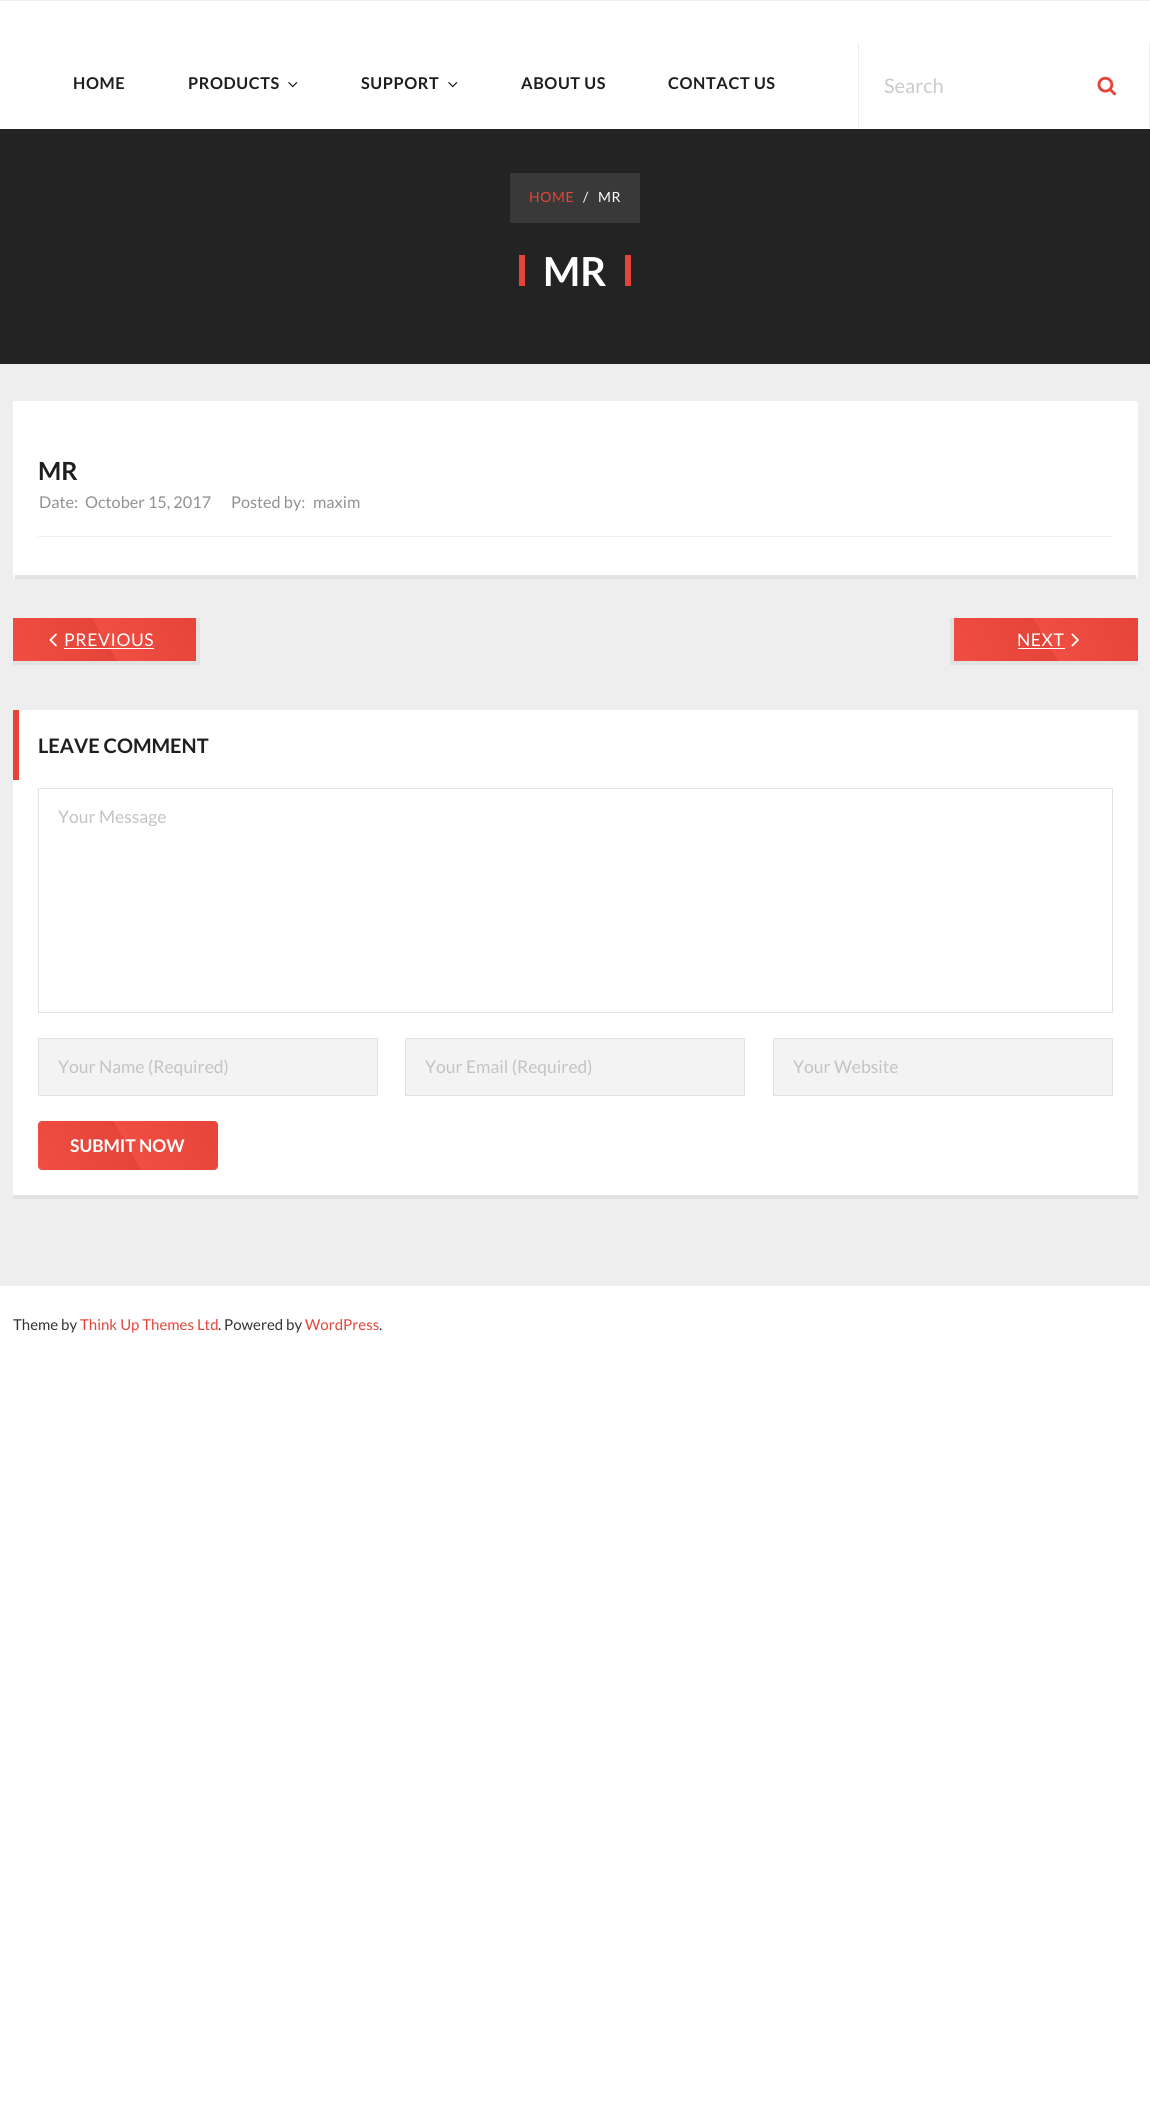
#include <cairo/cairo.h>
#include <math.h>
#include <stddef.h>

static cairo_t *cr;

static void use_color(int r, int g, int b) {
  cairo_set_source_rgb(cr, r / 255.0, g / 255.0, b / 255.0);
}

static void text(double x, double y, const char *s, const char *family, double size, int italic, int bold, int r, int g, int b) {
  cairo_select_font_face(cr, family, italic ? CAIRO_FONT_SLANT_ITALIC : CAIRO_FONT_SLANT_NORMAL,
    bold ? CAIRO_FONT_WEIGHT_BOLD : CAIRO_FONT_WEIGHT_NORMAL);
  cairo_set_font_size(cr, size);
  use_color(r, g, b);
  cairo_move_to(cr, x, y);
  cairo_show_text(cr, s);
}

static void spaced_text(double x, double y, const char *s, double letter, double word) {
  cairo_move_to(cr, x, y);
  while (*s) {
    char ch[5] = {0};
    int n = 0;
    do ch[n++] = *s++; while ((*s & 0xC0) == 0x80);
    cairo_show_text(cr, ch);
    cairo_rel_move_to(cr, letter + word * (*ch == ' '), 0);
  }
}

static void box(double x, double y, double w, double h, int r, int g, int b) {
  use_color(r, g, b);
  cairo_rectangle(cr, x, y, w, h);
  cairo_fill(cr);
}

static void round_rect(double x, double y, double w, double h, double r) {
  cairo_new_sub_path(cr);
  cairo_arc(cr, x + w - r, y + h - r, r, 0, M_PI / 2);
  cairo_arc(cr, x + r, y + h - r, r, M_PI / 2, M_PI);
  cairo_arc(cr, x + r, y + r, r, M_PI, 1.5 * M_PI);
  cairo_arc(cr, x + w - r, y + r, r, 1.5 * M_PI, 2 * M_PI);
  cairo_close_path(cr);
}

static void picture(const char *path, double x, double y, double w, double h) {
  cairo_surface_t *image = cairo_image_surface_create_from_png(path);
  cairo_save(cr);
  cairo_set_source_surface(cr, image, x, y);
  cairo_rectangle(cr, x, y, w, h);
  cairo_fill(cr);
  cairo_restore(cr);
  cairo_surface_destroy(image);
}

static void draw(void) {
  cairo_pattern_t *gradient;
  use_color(255, 255, 255);
  cairo_paint(cr);
  box(0, 364, 1150, 922, 238, 238, 238);
  box(0, 0, 1150, 1, 238, 238, 238);
  picture("img_01.png", 288, 82, 10, 6);
  picture("img_01.png", 448, 82, 10, 6);
  box(1149, 43, 1, 85, 238, 238, 238);
  box(858, 43, 1, 85, 238, 238, 238);
  picture("img_02.png", 1097, 76, 19, 20);
  box(0, 129, 1150, 235, 35, 35, 35);
  box(510, 173, 130, 50, 57, 57, 57);
  box(519, 255, 6, 31, 229, 68, 57);
  box(625, 255, 6, 31, 229, 68, 57);
  use_color(255, 255, 255);
  cairo_new_path(cr);
  cairo_move_to(cr, 13, 401);
  cairo_line_to(cr, 1138, 401);
  cairo_line_to(cr, 1138, 575);
  cairo_curve_to(cr, 1138, 577, 1136, 579, 1134, 579);
  cairo_line_to(cr, 17, 579);
  cairo_curve_to(cr, 15, 579, 13, 577, 13, 575);
  cairo_close_path(cr);
  cairo_fill(cr);
  box(15, 575, 1121, 4, 226, 226, 226);
  box(38, 536, 1075, 1, 240, 240, 240);
  gradient = cairo_pattern_create_linear(26, 685, 183, 594);
  cairo_pattern_add_color_stop_rgba(gradient, 0, 0.945, 0.306, 0.263, 1);
  cairo_pattern_add_color_stop_rgba(gradient, 0.5, 0.898, 0.267, 0.224, 1);
  cairo_pattern_add_color_stop_rgba(gradient, 0.5, 0.945, 0.306, 0.263, 1);
  cairo_pattern_add_color_stop_rgba(gradient, 1, 0.898, 0.267, 0.224, 1);
  cairo_set_source(cr, gradient);
  cairo_pattern_destroy(gradient);
  cairo_rectangle(cr, 13, 618, 183, 43);
  cairo_fill(cr);
  box(196, 618, 4, 47, 226, 226, 226);
  box(13, 661, 187, 4, 226, 226, 226);
  picture("img_03.png", 49, 633, 8, 14);
  box(64, 648, 90, 1, 255, 255, 255);
  gradient = cairo_pattern_create_linear(967, 685, 1124, 594);
  cairo_pattern_add_color_stop_rgba(gradient, 0, 0.945, 0.306, 0.263, 1);
  cairo_pattern_add_color_stop_rgba(gradient, 0.5, 0.898, 0.267, 0.224, 1);
  cairo_pattern_add_color_stop_rgba(gradient, 0.5, 0.945, 0.306, 0.263, 1);
  cairo_pattern_add_color_stop_rgba(gradient, 1, 0.898, 0.267, 0.224, 1);
  cairo_set_source(cr, gradient);
  cairo_pattern_destroy(gradient);
  cairo_rectangle(cr, 954, 618, 184, 43);
  cairo_fill(cr);
  box(950, 661, 188, 4, 226, 226, 226);
  box(950, 618, 4, 47, 226, 226, 226);
  box(1018, 648, 47, 1, 255, 255, 255);
  picture("img_04.png", 1071, 633, 8, 14);
  box(13, 710, 1125, 485, 255, 255, 255);
  box(13, 1195, 1125, 4, 226, 226, 226);
  box(13, 710, 6, 70, 229, 68, 57);
  cairo_rectangle(cr, 38.5, 788.5, 1074, 224);
  use_color(226, 226, 226);
  cairo_set_line_width(cr, 1);
  cairo_stroke(cr);
  use_color(243, 243, 243);
  cairo_rectangle(cr, 38.5, 1038.5, 339, 57);
  cairo_fill_preserve(cr);
  use_color(226, 226, 226);
  cairo_stroke(cr);
  use_color(243, 243, 243);
  cairo_rectangle(cr, 405.5, 1038.5, 339, 57);
  cairo_fill_preserve(cr);
  use_color(226, 226, 226);
  cairo_stroke(cr);
  use_color(243, 243, 243);
  cairo_rectangle(cr, 773.5, 1038.5, 339, 57);
  cairo_fill_preserve(cr);
  use_color(226, 226, 226);
  cairo_stroke(cr);
  gradient = cairo_pattern_create_linear(49, 1191, 206, 1101);
  cairo_pattern_add_color_stop_rgba(gradient, 0, 0.945, 0.306, 0.263, 1);
  cairo_pattern_add_color_stop_rgba(gradient, 0.5, 0.898, 0.267, 0.224, 1);
  cairo_pattern_add_color_stop_rgba(gradient, 0.5, 0.945, 0.306, 0.263, 1);
  cairo_pattern_add_color_stop_rgba(gradient, 1, 0.898, 0.267, 0.224, 1);
  cairo_set_source(cr, gradient);
  cairo_pattern_destroy(gradient);
  round_rect(38, 1121, 180, 49, 4);
  cairo_fill(cr);
  cairo_select_font_face(cr, "Lato", CAIRO_FONT_SLANT_NORMAL, CAIRO_FONT_WEIGHT_BOLD);
  cairo_set_font_size(cr, 16.25);
  use_color(30, 30, 30);
  spaced_text(73, 89, "HOME", 0.6, 0);
  spaced_text(188, 89, "PRODUCTS", 0.6, 0);
  spaced_text(361, 89, "SUPPORT", 0.6, 0);
  spaced_text(521, 89, "ABOUT US", 0.6, 0);
  spaced_text(668, 89, "CONTACT US", 0.6, 0);
  text(884, 93, "Search", "Lato", 20, 0, 0, 202, 202, 202);
  cairo_set_font_size(cr, 14);
  use_color(229, 68, 57);
  spaced_text(529, 202, "HOME", 0.6, 0);
  use_color(255, 255, 255);
  spaced_text(583, 202, "/", 0.6, 0);
  spaced_text(598, 202, "MR", 0.6, 0);
  text(543, 286, "MR", "Lato", 40, 0, 1, 255, 255, 255);
  text(38, 480, "MR", "Lato", 25, 0, 1, 30, 30, 30);
  text(39, 508, "Date:", "Lato", 16.25, 0, 0, 145, 145, 145);
  text(85, 508, "October 15, 2017", "Lato", 16.25, 0, 0, 145, 145, 145);
  text(231, 508, "Posted by:", "Lato", 16.25, 0, 0, 145, 145, 145);
  text(313, 508, "maxim", "Lato", 16.25, 0, 0, 145, 145, 145);
  cairo_set_font_size(cr, 17.5);
  use_color(255, 255, 255);
  spaced_text(64, 646, "PREVIOUS", 0.6, 0);
  spaced_text(1017, 646, "NEXT", 0.6, 0);
  text(38, 753, "LEAVE COMMENT", "Lato", 20, 0, 1, 30, 30, 30);
  text(58, 823, "Your Message", "Lato", 17.5, 0, 0, 195, 195, 195);
  text(58, 1073, "Your Name (Required)", "Lato", 17.5, 0, 0, 195, 195, 195);
  text(425, 1073, "Your Email (Required)", "Lato", 17.5, 0, 0, 195, 195, 195);
  text(793, 1073, "Your Website", "Lato", 17.5, 0, 0, 195, 195, 195);
  text(70, 1152, "SUBMIT NOW", "Lato", 17.5, 0, 1, 255, 255, 255);
  text(13, 1330, "Theme by", "Lato", 15, 0, 0, 51, 51, 51);
  text(80, 1330, "Think Up Themes Ltd", "Lato", 15, 0, 0, 229, 68, 57);
  text(218, 1330, ". Powered by", "Lato", 15, 0, 0, 51, 51, 51);
  text(305, 1330, "WordPress", "Lato", 15, 0, 0, 229, 68, 57);
  text(379, 1330, ".", "Lato", 15, 0, 0, 51, 51, 51);
}

int main(void) {
  cairo_surface_t *surface = cairo_image_surface_create(CAIRO_FORMAT_RGB24, 1150, 2115);
  cr = cairo_create(surface);
  cairo_font_options_t *options = cairo_font_options_create();
  cairo_font_options_set_hint_metrics(options, CAIRO_HINT_METRICS_OFF);
  cairo_font_options_set_hint_style(options, CAIRO_HINT_STYLE_NONE);
  cairo_set_font_options(cr, options);
  cairo_set_miter_limit(cr, 4);
  draw();
  cairo_surface_write_to_png(surface, "out.png");
  cairo_font_options_destroy(options);
  cairo_destroy(cr);
  cairo_surface_destroy(surface);
  return 0;
}
